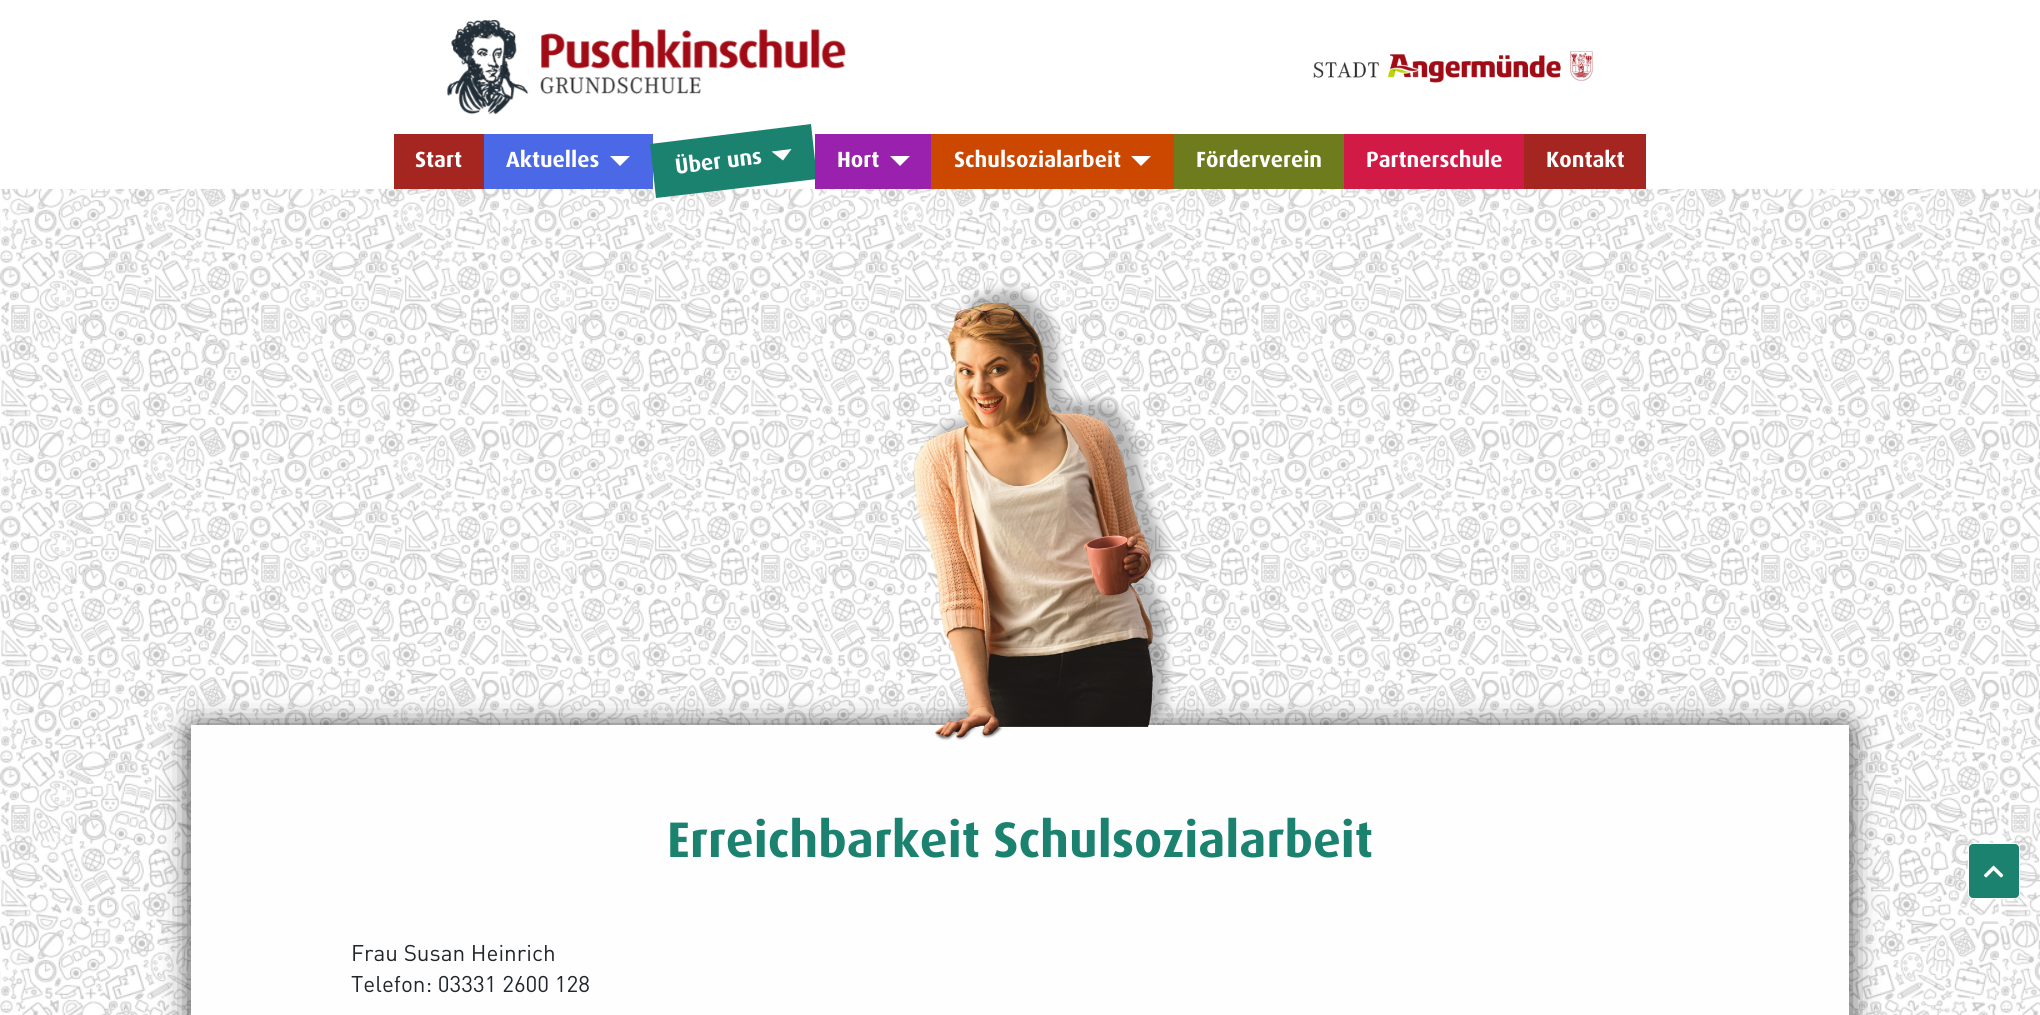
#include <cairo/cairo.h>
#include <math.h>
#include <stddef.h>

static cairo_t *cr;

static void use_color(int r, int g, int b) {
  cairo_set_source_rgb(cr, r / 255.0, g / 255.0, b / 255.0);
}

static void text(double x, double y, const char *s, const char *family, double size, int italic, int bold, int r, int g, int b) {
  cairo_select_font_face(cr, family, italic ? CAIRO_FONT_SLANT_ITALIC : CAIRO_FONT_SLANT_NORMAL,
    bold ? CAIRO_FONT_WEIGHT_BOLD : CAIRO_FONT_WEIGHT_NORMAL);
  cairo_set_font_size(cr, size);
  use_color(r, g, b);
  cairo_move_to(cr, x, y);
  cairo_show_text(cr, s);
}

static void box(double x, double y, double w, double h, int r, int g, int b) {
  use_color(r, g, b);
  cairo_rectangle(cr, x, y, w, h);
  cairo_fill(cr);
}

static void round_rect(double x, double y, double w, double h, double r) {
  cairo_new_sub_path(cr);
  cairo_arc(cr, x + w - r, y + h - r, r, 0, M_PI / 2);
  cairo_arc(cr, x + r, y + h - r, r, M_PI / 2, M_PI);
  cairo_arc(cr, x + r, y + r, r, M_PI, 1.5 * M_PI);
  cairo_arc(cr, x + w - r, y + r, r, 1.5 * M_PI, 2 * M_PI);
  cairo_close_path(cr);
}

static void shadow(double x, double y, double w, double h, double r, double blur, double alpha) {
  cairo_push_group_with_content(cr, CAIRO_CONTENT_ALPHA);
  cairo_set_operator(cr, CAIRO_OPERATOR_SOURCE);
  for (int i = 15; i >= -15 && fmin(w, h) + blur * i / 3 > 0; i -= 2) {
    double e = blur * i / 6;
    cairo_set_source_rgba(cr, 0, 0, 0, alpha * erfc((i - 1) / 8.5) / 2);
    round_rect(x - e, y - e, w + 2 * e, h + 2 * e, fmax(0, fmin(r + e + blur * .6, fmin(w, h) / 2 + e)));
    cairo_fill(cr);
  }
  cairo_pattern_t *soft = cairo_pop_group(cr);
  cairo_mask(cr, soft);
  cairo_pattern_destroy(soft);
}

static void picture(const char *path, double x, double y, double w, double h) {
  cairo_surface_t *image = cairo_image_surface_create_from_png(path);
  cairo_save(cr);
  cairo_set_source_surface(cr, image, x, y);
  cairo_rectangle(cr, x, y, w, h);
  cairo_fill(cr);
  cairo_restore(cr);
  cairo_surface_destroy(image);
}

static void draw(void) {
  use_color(255, 255, 255);
  cairo_paint(cr);
  picture("img_01.png", 0, 189, 2040, 826);
  picture("img_02.png", 447, 20, 399, 95);
  picture("img_03.png", 1313, 51, 280, 32);
  box(394, 134, 90, 55, 165, 38, 33);
  box(484, 134, 169, 55, 75, 104, 231);
  use_color(254, 254, 254);
  cairo_new_path(cr);
  cairo_move_to(cr, 610, 156);
  cairo_line_to(cr, 630, 156);
  cairo_line_to(cr, 620, 166);
  cairo_close_path(cr);
  cairo_fill(cr);
  use_color(28, 130, 112);
  cairo_new_path(cr);
  cairo_move_to(cr, 650, 144);
  cairo_line_to(cr, 811, 124);
  cairo_line_to(cr, 817, 179);
  cairo_line_to(cr, 656, 198);
  cairo_close_path(cr);
  cairo_fill(cr);
  use_color(254, 254, 254);
  cairo_new_path(cr);
  cairo_move_to(cr, 771.5, 151.5);
  cairo_line_to(cr, 791.5, 149);
  cairo_line_to(cr, 783, 160.5);
  cairo_close_path(cr);
  cairo_fill(cr);
  box(815, 134, 116, 55, 153, 33, 173);
  use_color(254, 254, 254);
  cairo_new_path(cr);
  cairo_move_to(cr, 890, 156);
  cairo_line_to(cr, 910, 156);
  cairo_line_to(cr, 900, 166);
  cairo_close_path(cr);
  cairo_fill(cr);
  box(931, 134, 243, 55, 204, 71, 0);
  use_color(254, 254, 254);
  cairo_new_path(cr);
  cairo_move_to(cr, 1131, 156);
  cairo_line_to(cr, 1151, 156);
  cairo_line_to(cr, 1141, 166);
  cairo_close_path(cr);
  cairo_fill(cr);
  box(1174, 134, 170, 55, 110, 124, 29);
  box(1344, 134, 180, 55, 210, 26, 70);
  box(1524, 134, 122, 55, 165, 38, 33);
  use_color(0, 0, 0);
  shadow(194, 730, 1652, 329, 0, 14.5, 0.96);
  box(191, 725, 1658, 290, 254, 254, 254);
  picture("img_04.png", 913, 283, 260, 458);
  use_color(28, 130, 112);
  round_rect(1968.5, 843.5, 51, 55, 4.5);
  cairo_fill_preserve(cr);
  use_color(254, 254, 254);
  cairo_set_line_width(cr, 1);
  cairo_stroke(cr);
  picture("img_05.png", 1984, 865, 20, 13);
  text(415, 167, "Start", "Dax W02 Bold", 22, 0, 1, 254, 254, 254);
  text(506, 167, "Aktuelles", "Dax W02 Bold", 22, 0, 1, 254, 254, 254);
  cairo_save(cr);
  cairo_translate(cr, 676, 174);
  cairo_rotate(cr, -7 * M_PI / 180);
  text(0, 0, "Über uns", "Dax W02 Bold", 22, 0, 1, 254, 254, 254);
  cairo_restore(cr);
  text(837, 167, "Hort", "Dax W02 Bold", 22, 0, 1, 254, 254, 254);
  text(954, 167, "Schulsozialarbeit", "Dax W02 Bold", 22, 0, 1, 254, 254, 254);
  text(1196, 167, "Förderverein", "Dax W02 Bold", 22, 0, 1, 254, 254, 254);
  text(1366, 167, "Partnerschule", "Dax W02 Bold", 22, 0, 1, 254, 254, 254);
  text(1546, 167, "Kontakt", "Dax W02 Bold", 22, 0, 1, 254, 254, 254);
  text(667, 857, "Erreichbarkeit Schulsozialarbeit", "Dax W02 Bold", 50, 0, 1, 28, 130, 112);
  text(351, 961, "Frau Susan Heinrich", "DIN", 22.5, 0, 0, 34, 38, 42);
  text(351, 992, "Telefon: 03331 2600 128", "DIN", 22.5, 0, 0, 34, 38, 42);
}

int main(void) {
  cairo_surface_t *surface = cairo_image_surface_create(CAIRO_FORMAT_RGB24, 2040, 1015);
  cr = cairo_create(surface);
  cairo_font_options_t *options = cairo_font_options_create();
  cairo_font_options_set_hint_metrics(options, CAIRO_HINT_METRICS_OFF);
  cairo_font_options_set_hint_style(options, CAIRO_HINT_STYLE_NONE);
  cairo_set_font_options(cr, options);
  cairo_set_miter_limit(cr, 4);
  draw();
  cairo_surface_write_to_png(surface, "out.png");
  cairo_font_options_destroy(options);
  cairo_destroy(cr);
  cairo_surface_destroy(surface);
  return 0;
}
